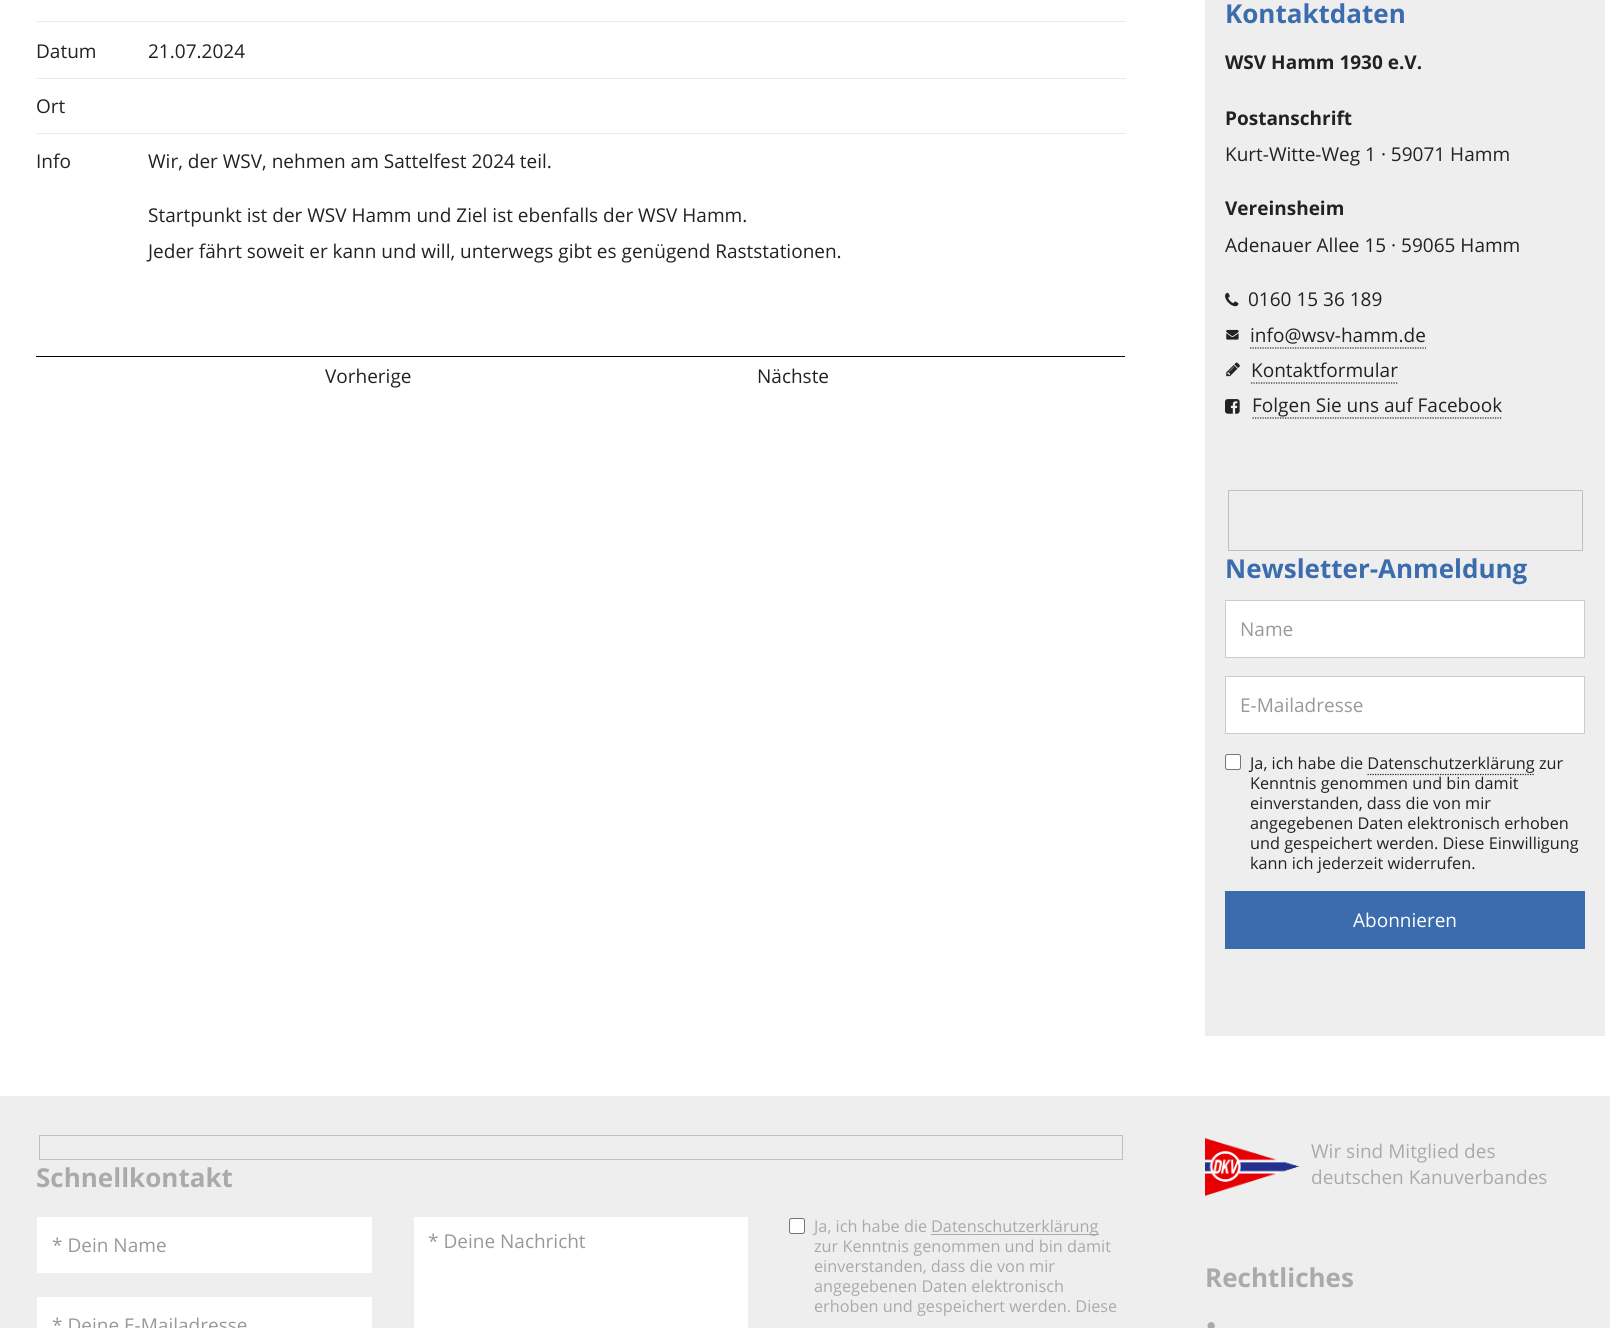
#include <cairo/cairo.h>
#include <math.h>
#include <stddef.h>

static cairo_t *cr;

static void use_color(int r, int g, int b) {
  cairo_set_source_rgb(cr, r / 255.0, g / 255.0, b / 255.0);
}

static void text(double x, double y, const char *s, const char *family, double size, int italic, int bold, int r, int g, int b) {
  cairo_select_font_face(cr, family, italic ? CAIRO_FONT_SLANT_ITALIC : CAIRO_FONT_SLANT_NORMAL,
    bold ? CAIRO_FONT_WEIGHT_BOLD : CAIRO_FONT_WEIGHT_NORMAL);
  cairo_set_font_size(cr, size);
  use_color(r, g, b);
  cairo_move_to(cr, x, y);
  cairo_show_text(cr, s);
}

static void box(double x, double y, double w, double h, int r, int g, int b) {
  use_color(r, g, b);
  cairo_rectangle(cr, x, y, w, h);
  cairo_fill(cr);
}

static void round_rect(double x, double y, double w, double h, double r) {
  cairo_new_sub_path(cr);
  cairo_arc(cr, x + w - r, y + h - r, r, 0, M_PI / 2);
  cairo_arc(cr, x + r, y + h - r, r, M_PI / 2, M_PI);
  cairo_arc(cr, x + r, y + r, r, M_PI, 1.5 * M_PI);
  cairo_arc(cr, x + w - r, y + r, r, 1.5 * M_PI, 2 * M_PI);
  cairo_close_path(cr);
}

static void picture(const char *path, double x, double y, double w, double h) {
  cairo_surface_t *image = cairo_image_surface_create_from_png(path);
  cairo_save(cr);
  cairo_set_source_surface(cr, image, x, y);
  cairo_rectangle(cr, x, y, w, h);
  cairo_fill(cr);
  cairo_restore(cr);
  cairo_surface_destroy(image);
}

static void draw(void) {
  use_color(255, 255, 255);
  cairo_paint(cr);
  box(36, 21, 1090, 1, 235, 235, 235);
  box(36, 78, 1090, 1, 235, 235, 235);
  box(36, 133, 1090, 1, 235, 235, 235);
  box(36, 356, 1089, 1, 0, 0, 0);
  box(1205, 0, 400, 1036, 238, 238, 238);
  picture("img_01.png", 1225, 292, 14, 15);
  picture("img_02.png", 1226, 329, 13, 11);
  cairo_new_path(cr);
  cairo_move_to(cr, 1250, 348);
  cairo_line_to(cr, 1426, 348);
  use_color(34, 34, 34);
  cairo_set_line_width(cr, 1.2);
  cairo_set_dash(cr, (double[]){1.25, 1.25}, 2, 0);
  cairo_stroke(cr);
  picture("img_03.png", 1226, 362, 14, 15);
  cairo_new_path(cr);
  cairo_move_to(cr, 1251, 383);
  cairo_line_to(cr, 1397.5, 383);
  cairo_stroke(cr);
  picture("img_04.png", 1225, 399, 15, 15);
  cairo_new_path(cr);
  cairo_move_to(cr, 1252.5, 418);
  cairo_line_to(cr, 1502.5, 418);
  cairo_stroke(cr);
  cairo_rectangle(cr, 1228.5, 490.5, 354, 60);
  use_color(192, 192, 192);
  cairo_set_line_width(cr, 1);
  cairo_set_dash(cr, NULL, 0, 0);
  cairo_stroke(cr);
  use_color(255, 255, 255);
  cairo_rectangle(cr, 1225.5, 600.5, 359, 57);
  cairo_fill_preserve(cr);
  use_color(204, 204, 204);
  cairo_stroke(cr);
  use_color(255, 255, 255);
  cairo_rectangle(cr, 1225.5, 676.5, 359, 57);
  cairo_fill_preserve(cr);
  use_color(204, 204, 204);
  cairo_stroke(cr);
  use_color(255, 255, 255);
  round_rect(1225.5, 754.5, 15, 15, 2);
  cairo_fill_preserve(cr);
  use_color(118, 118, 118);
  cairo_stroke(cr);
  cairo_new_path(cr);
  cairo_move_to(cr, 1367.5, 774.5);
  cairo_line_to(cr, 1535, 774.5);
  use_color(34, 34, 34);
  cairo_set_line_width(cr, 1.2);
  cairo_set_dash(cr, (double[]){1.25, 1.25}, 2, 0);
  cairo_stroke(cr);
  box(1225, 891, 360, 58, 59, 108, 174);
  box(0, 1096, 1610, 232, 238, 238, 238);
  cairo_rectangle(cr, 39.5, 1135.5, 1083, 24);
  use_color(192, 192, 192);
  cairo_set_line_width(cr, 1);
  cairo_set_dash(cr, NULL, 0, 0);
  cairo_stroke(cr);
  box(37, 1217, 335, 56, 255, 255, 255);
  box(37, 1297, 335, 31, 255, 255, 255);
  box(414, 1217, 334, 111, 255, 255, 255);
  round_rect(789.5, 1218.5, 15, 15, 2);
  cairo_fill_preserve(cr);
  use_color(118, 118, 118);
  cairo_stroke(cr);
  box(931, 1234, 168, 1, 170, 170, 170);
  picture("img_05.png", 1205, 1138, 94, 58);
  picture("img_06.png", 1207, 1322, 8, 6);
  text(36, 58, "Datum", "Open Sans", 19, 0, 0, 34, 34, 34);
  text(148, 58, "21.07.2024", "Open Sans", 19, 0, 0, 34, 34, 34);
  text(36, 113, "Ort", "Open Sans", 19, 0, 0, 34, 34, 34);
  text(36, 168, "Info", "Open Sans", 19, 0, 0, 34, 34, 34);
  text(148, 168, "Wir, der WSV, nehmen am Sattelfest 2024 teil.", "Open Sans", 19, 0, 0, 34, 34, 34);
  text(148, 222, "Startpunkt ist der WSV Hamm und Ziel ist ebenfalls der WSV Hamm.", "Open Sans", 19, 0, 0, 34, 34, 34);
  text(148, 258, "Jeder fährt soweit er kann und will, unterwegs gibt es genügend Raststationen.", "Open Sans", 19, 0, 0, 34, 34, 34);
  text(325, 383, "Vorherige", "Open Sans", 19, 0, 0, 34, 34, 34);
  text(757, 383, "Nächste", "Open Sans", 19, 0, 0, 34, 34, 34);
  text(1225, 23, "Kontaktdaten", "Open Sans", 26, 0, 1, 59, 108, 174);
  text(1225, 69, "WSV Hamm 1930 e.V.", "Open Sans", 19, 0, 1, 34, 34, 34);
  text(1225, 125, "Postanschrift", "Open Sans", 19, 0, 1, 34, 34, 34);
  text(1225, 161, "Kurt-Witte-Weg 1 · 59071 Hamm", "Open Sans", 19, 0, 0, 34, 34, 34);
  text(1225, 215, "Vereinsheim", "Open Sans", 19, 0, 1, 34, 34, 34);
  text(1225, 252, "Adenauer Allee 15 · 59065 Hamm", "Open Sans", 19, 0, 0, 34, 34, 34);
  text(1248, 306, "0160 15 36 189", "Open Sans", 19, 0, 0, 34, 34, 34);
  text(1250, 342, "info@wsv-hamm.de", "Open Sans", 19, 0, 0, 34, 34, 34);
  text(1251, 377, "Kontaktformular", "Open Sans", 19, 0, 0, 34, 34, 34);
  text(1252, 412, "Folgen Sie uns auf Facebook", "Open Sans", 19, 0, 0, 34, 34, 34);
  text(1225, 578, "Newsletter-Anmeldung", "Open Sans", 26, 0, 1, 59, 108, 174);
  text(1240, 636, "Name", "Open Sans", 19, 0, 0, 153, 153, 153);
  text(1240, 712, "E-Mailadresse", "Open Sans", 19, 0, 0, 153, 153, 153);
  text(1250, 769, "Ja, ich habe die Datenschutzerklärung zur", "Open Sans", 16.25, 0, 0, 34, 34, 34);
  text(1250, 789, "Kenntnis genommen und bin damit", "Open Sans", 16.25, 0, 0, 34, 34, 34);
  text(1250, 809, "einverstanden, dass die von mir", "Open Sans", 16.25, 0, 0, 34, 34, 34);
  text(1250, 829, "angegebenen Daten elektronisch erhoben", "Open Sans", 16.25, 0, 0, 34, 34, 34);
  text(1250, 849, "und gespeichert werden. Diese Einwilligung", "Open Sans", 16.25, 0, 0, 34, 34, 34);
  text(1250, 869, "kann ich jederzeit widerrufen.", "Open Sans", 16.25, 0, 0, 34, 34, 34);
  text(1353, 927, "Abonnieren", "Open Sans", 19, 0, 0, 255, 255, 255);
  text(36, 1187, "Schnellkontakt", "Open Sans", 26, 0, 1, 170, 170, 170);
  text(52, 1252, "* Dein Name", "Open Sans", 19, 0, 0, 153, 153, 153);
  text(52, 1332, "* Deine E-Mailadresse", "Open Sans", 19, 0, 0, 153, 153, 153);
  text(428, 1248, "* Deine Nachricht", "Open Sans", 19, 0, 0, 153, 153, 153);
  text(814, 1232, "Ja, ich habe die", "Open Sans", 16.25, 0, 0, 170, 170, 170);
  text(931, 1232, "Datenschutzerklärung", "Open Sans", 16.25, 0, 0, 170, 170, 170);
  text(814, 1252, "zur Kenntnis genommen und bin damit", "Open Sans", 16.25, 0, 0, 170, 170, 170);
  text(814, 1272, "einverstanden, dass die von mir", "Open Sans", 16.25, 0, 0, 170, 170, 170);
  text(814, 1292, "angegebenen Daten elektronisch", "Open Sans", 16.25, 0, 0, 170, 170, 170);
  text(814, 1312, "erhoben und gespeichert werden. Diese", "Open Sans", 16.25, 0, 0, 170, 170, 170);
  text(1311, 1158, "Wir sind Mitglied des", "Open Sans", 19, 0, 0, 170, 170, 170);
  text(1311, 1184, "deutschen Kanuverbandes", "Open Sans", 19, 0, 0, 170, 170, 170);
  text(1205, 1287, "Rechtliches", "Open Sans", 26, 0, 1, 170, 170, 170);
}

int main(void) {
  cairo_surface_t *surface = cairo_image_surface_create(CAIRO_FORMAT_RGB24, 1610, 1328);
  cr = cairo_create(surface);
  cairo_font_options_t *options = cairo_font_options_create();
  cairo_font_options_set_hint_metrics(options, CAIRO_HINT_METRICS_OFF);
  cairo_font_options_set_hint_style(options, CAIRO_HINT_STYLE_NONE);
  cairo_set_font_options(cr, options);
  cairo_set_miter_limit(cr, 4);
  draw();
  cairo_surface_write_to_png(surface, "out.png");
  cairo_font_options_destroy(options);
  cairo_destroy(cr);
  cairo_surface_destroy(surface);
  return 0;
}
